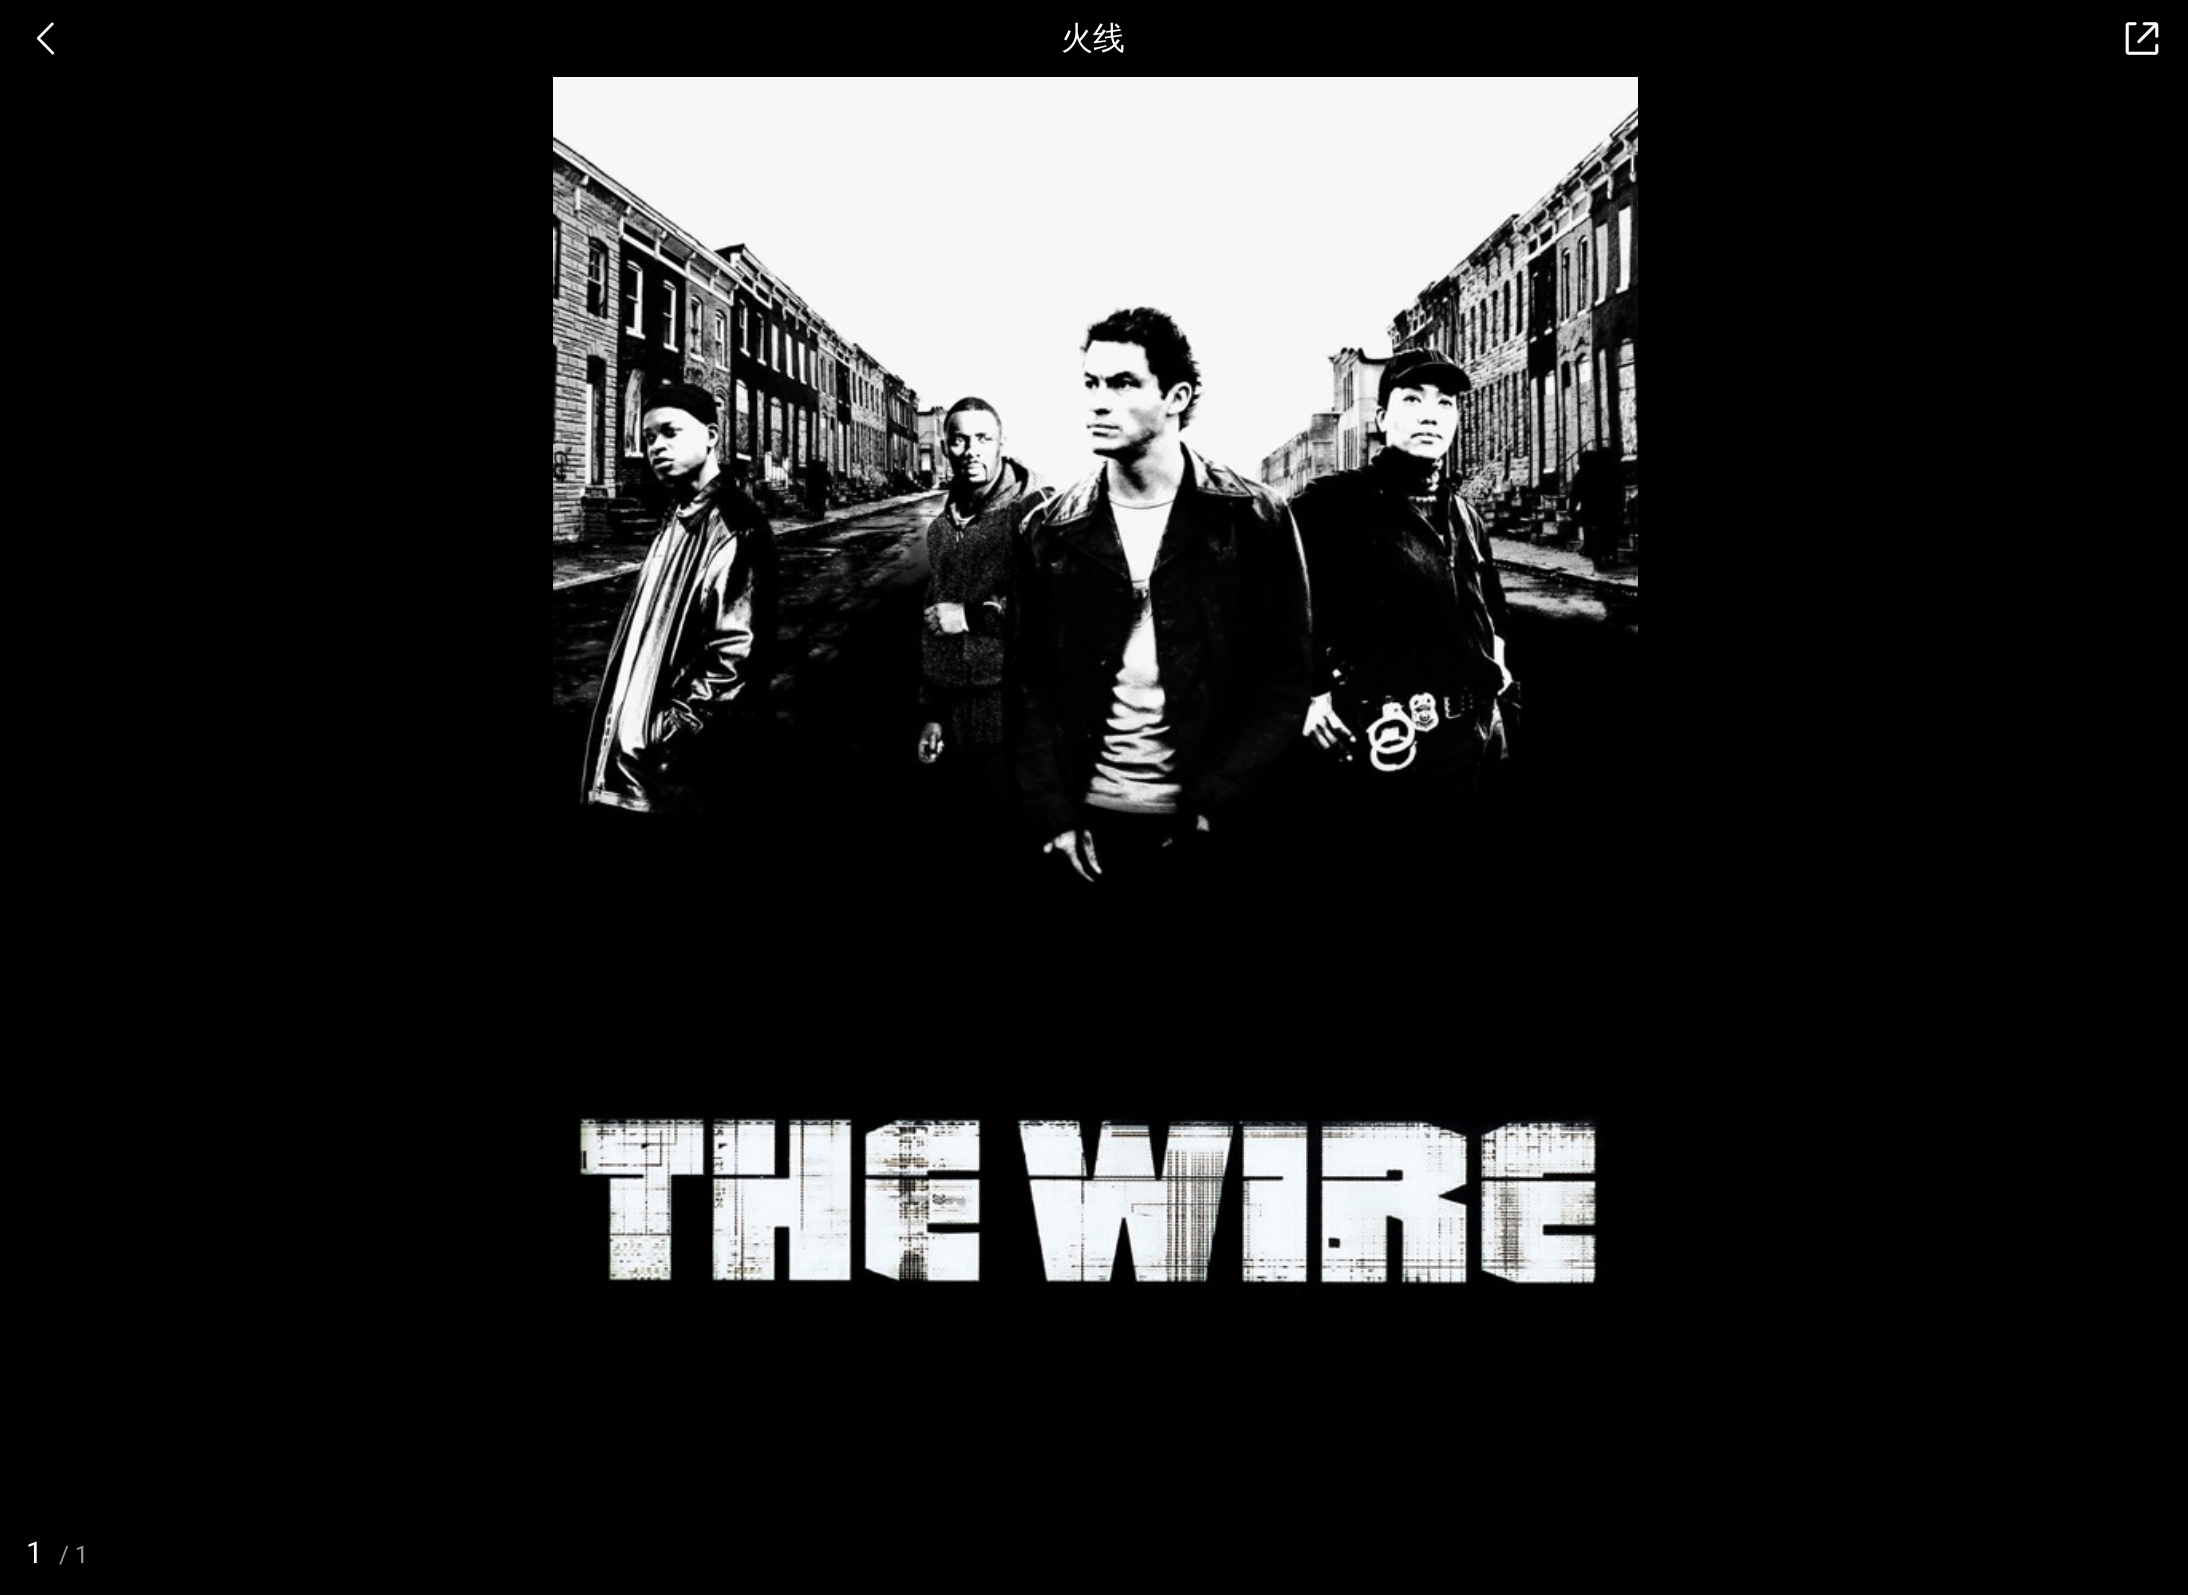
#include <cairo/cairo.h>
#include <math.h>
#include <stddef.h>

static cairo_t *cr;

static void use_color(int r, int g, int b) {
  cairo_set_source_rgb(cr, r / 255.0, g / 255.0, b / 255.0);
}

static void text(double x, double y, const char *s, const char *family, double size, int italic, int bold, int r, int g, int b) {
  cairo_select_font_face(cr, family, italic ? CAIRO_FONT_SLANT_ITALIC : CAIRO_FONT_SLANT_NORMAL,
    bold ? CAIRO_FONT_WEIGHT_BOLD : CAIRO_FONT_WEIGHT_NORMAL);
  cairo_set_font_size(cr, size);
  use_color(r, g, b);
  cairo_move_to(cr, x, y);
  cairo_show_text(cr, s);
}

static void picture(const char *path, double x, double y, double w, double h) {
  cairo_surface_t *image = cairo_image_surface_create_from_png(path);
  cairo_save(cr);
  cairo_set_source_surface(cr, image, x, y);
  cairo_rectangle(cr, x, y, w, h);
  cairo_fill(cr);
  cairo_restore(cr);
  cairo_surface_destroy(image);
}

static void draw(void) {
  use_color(0, 0, 0);
  cairo_paint(cr);
  picture("img_01.png", 36, 22, 19, 33);
  picture("img_02.png", 2125, 22, 34, 33);
  picture("img_03.png", 553, 77, 1085, 1217);
  text(1061, 49, "火线", "WenQuanYi Zen Hei Medium", 32, 0, 0, 255, 255, 255);
  text(26, 1563, "1", "Roboto", 30, 0, 0, 255, 255, 255);
  text(59, 1563, "/ 1", "Roboto", 24, 0, 0, 153, 153, 153);
}

int main(void) {
  cairo_surface_t *surface = cairo_image_surface_create(CAIRO_FORMAT_RGB24, 2188, 1595);
  cr = cairo_create(surface);
  cairo_font_options_t *options = cairo_font_options_create();
  cairo_font_options_set_hint_metrics(options, CAIRO_HINT_METRICS_OFF);
  cairo_font_options_set_hint_style(options, CAIRO_HINT_STYLE_NONE);
  cairo_set_font_options(cr, options);
  cairo_set_miter_limit(cr, 4);
  draw();
  cairo_surface_write_to_png(surface, "out.png");
  cairo_font_options_destroy(options);
  cairo_destroy(cr);
  cairo_surface_destroy(surface);
  return 0;
}
